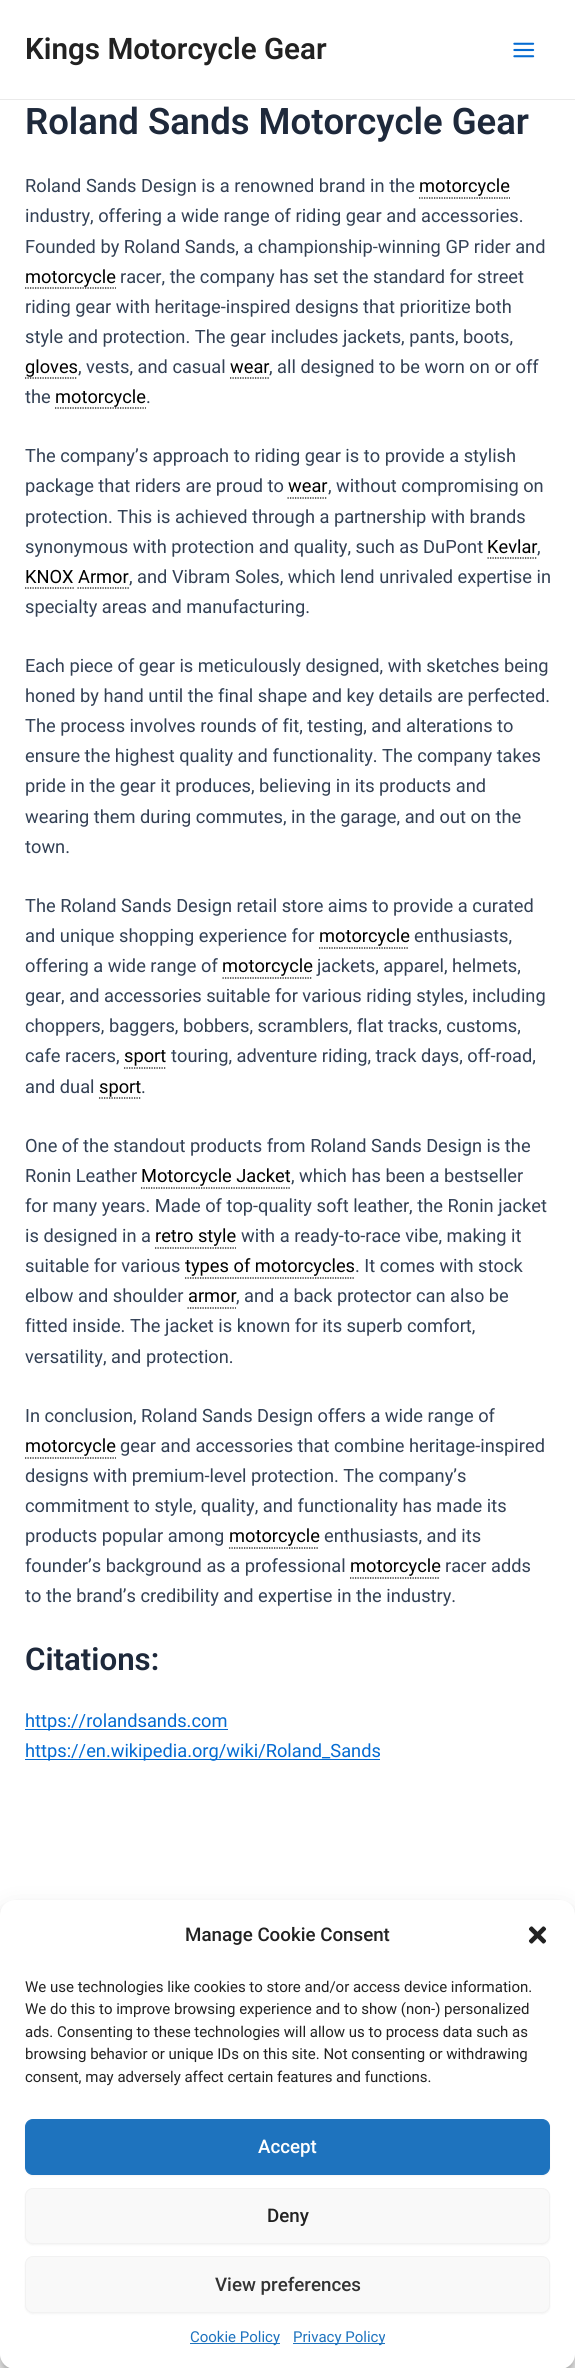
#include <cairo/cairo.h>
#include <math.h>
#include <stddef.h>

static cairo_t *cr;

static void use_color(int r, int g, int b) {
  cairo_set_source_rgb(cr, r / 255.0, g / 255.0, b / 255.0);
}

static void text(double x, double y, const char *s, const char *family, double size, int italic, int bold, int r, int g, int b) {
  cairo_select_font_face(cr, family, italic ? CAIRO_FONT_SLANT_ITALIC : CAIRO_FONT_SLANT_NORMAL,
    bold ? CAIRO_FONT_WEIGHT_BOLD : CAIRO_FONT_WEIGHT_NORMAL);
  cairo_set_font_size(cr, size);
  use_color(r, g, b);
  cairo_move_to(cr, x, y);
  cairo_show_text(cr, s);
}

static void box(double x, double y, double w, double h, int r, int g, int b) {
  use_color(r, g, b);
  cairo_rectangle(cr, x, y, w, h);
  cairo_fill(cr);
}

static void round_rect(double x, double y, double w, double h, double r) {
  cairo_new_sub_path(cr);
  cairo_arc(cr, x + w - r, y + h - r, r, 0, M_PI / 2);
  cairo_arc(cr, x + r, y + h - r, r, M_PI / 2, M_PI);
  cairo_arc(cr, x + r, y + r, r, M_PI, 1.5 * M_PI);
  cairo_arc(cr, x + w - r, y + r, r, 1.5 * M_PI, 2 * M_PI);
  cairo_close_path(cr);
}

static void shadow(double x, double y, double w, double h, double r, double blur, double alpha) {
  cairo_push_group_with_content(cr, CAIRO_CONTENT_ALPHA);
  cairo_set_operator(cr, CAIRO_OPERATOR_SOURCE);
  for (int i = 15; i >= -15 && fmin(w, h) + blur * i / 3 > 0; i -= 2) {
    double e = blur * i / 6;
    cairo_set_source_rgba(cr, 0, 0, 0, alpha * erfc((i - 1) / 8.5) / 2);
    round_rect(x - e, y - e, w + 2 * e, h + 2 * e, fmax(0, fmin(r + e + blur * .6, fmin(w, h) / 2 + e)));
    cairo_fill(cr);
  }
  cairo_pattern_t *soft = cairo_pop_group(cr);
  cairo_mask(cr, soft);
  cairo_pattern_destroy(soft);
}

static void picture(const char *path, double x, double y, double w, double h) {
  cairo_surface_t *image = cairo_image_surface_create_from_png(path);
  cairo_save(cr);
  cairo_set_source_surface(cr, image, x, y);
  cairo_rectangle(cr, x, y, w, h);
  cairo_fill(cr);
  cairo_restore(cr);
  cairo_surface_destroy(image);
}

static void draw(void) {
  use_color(255, 255, 255);
  cairo_paint(cr);
  box(0, 99, 575, 1, 234, 234, 234);
  picture("img_01.png", 513, 42, 22, 16);
  cairo_new_path(cr);
  cairo_move_to(cr, 419, 198);
  cairo_line_to(cr, 510, 198);
  use_color(0, 0, 0);
  cairo_set_line_width(cr, 1.2);
  cairo_set_dash(cr, (double[]){1.25, 1.25}, 2, 0);
  cairo_stroke(cr);
  cairo_new_path(cr);
  cairo_move_to(cr, 25, 288);
  cairo_line_to(cr, 116, 288);
  cairo_stroke(cr);
  cairo_new_path(cr);
  cairo_move_to(cr, 25, 378);
  cairo_line_to(cr, 77.5, 378);
  cairo_stroke(cr);
  cairo_new_path(cr);
  cairo_move_to(cr, 230, 378);
  cairo_line_to(cr, 270, 378);
  cairo_stroke(cr);
  cairo_new_path(cr);
  cairo_move_to(cr, 55, 408);
  cairo_line_to(cr, 146, 408);
  cairo_stroke(cr);
  cairo_new_path(cr);
  cairo_move_to(cr, 287.5, 498);
  cairo_line_to(cr, 327.5, 498);
  cairo_stroke(cr);
  cairo_new_path(cr);
  cairo_move_to(cr, 487.5, 558);
  cairo_line_to(cr, 537.5, 558);
  cairo_stroke(cr);
  cairo_new_path(cr);
  cairo_move_to(cr, 25, 588);
  cairo_line_to(cr, 74, 588);
  cairo_stroke(cr);
  cairo_new_path(cr);
  cairo_move_to(cr, 77.5, 588);
  cairo_line_to(cr, 129, 588);
  cairo_stroke(cr);
  cairo_new_path(cr);
  cairo_move_to(cr, 319, 948);
  cairo_line_to(cr, 409, 948);
  cairo_stroke(cr);
  cairo_new_path(cr);
  cairo_move_to(cr, 222.5, 978);
  cairo_line_to(cr, 312.5, 978);
  cairo_stroke(cr);
  cairo_new_path(cr);
  cairo_move_to(cr, 124, 1068);
  cairo_line_to(cr, 166, 1068);
  cairo_stroke(cr);
  cairo_new_path(cr);
  cairo_move_to(cr, 99, 1098);
  cairo_line_to(cr, 141, 1098);
  cairo_stroke(cr);
  cairo_new_path(cr);
  cairo_move_to(cr, 141, 1188);
  cairo_line_to(cr, 291, 1188);
  cairo_stroke(cr);
  cairo_new_path(cr);
  cairo_move_to(cr, 155, 1248);
  cairo_line_to(cr, 236, 1248);
  cairo_stroke(cr);
  cairo_new_path(cr);
  cairo_move_to(cr, 185, 1278);
  cairo_line_to(cr, 355, 1278);
  cairo_stroke(cr);
  cairo_new_path(cr);
  cairo_move_to(cr, 187.5, 1308);
  cairo_line_to(cr, 236, 1308);
  cairo_stroke(cr);
  cairo_new_path(cr);
  cairo_move_to(cr, 25, 1458);
  cairo_line_to(cr, 116, 1458);
  cairo_stroke(cr);
  cairo_new_path(cr);
  cairo_move_to(cr, 229, 1548);
  cairo_line_to(cr, 319, 1548);
  cairo_stroke(cr);
  cairo_new_path(cr);
  cairo_move_to(cr, 350, 1578);
  cairo_line_to(cr, 440, 1578);
  cairo_stroke(cr);
  box(25, 1729, 203, 1, 4, 107, 210);
  box(25, 1759, 355, 1, 4, 107, 210);
  use_color(0, 0, 0);
  shadow(0, 1908, 575, 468, 15, 4, 0.23);
  shadow(0, 1913, 575, 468, 15, 12.5, 0.19);
  use_color(255, 255, 255);
  round_rect(0, 1900, 575, 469, 15);
  cairo_fill(cr);
  picture("img_02.png", 528, 1926, 19, 18);
  use_color(0, 0, 0);
  shadow(25, 2120, 525, 56, 8, 1, 0.05);
  use_color(30, 115, 190);
  round_rect(25.5, 2119.5, 524, 55, 7.5);
  cairo_fill_preserve(cr);
  cairo_set_line_width(cr, 1);
  cairo_set_dash(cr, NULL, 0, 0);
  cairo_stroke(cr);
  use_color(0, 0, 0);
  shadow(25, 2189, 525, 56, 8, 1, 0.05);
  use_color(249, 249, 249);
  round_rect(25.5, 2188.5, 524, 55, 7.5);
  cairo_fill_preserve(cr);
  use_color(242, 242, 242);
  cairo_stroke(cr);
  use_color(0, 0, 0);
  shadow(25, 2258, 525, 56, 8, 1, 0.05);
  use_color(249, 249, 249);
  round_rect(25.5, 2256.5, 524, 56, 7.5);
  cairo_fill_preserve(cr);
  use_color(242, 242, 242);
  cairo_stroke(cr);
  box(190, 2343, 90, 1, 30, 115, 190);
  box(293, 2343, 92, 1, 30, 115, 190);
  text(25, 59, "Kings Motorcycle Gear", "Roboto SemiBold", 29.6, 0, 0, 34, 34, 34);
  text(25, 134, "Roland Sands Motorcycle Gear", "Roboto SemiBold", 36.5, 0, 0, 30, 41, 59);
  text(25, 192, "Roland Sands Design is a renowned brand in the", "Roboto", 18.25, 0, 0, 51, 65, 85);
  text(419, 192, "motorcycle", "Roboto", 18.25, 0, 0, 0, 0, 0);
  text(25, 222, "industry, offering a wide range of riding gear and accessories.", "Roboto", 18.25, 0, 0, 51, 65, 85);
  text(25, 253, "Founded by Roland Sands, a championship-winning GP rider and", "Roboto", 18.25, 0, 0, 51, 65, 85);
  text(25, 283, "motorcycle", "Roboto", 18.25, 0, 0, 0, 0, 0);
  text(120, 283, "racer, the company has set the standard for street", "Roboto", 18.25, 0, 0, 51, 65, 85);
  text(25, 313, "riding gear with heritage-inspired designs that prioritize both", "Roboto", 18.25, 0, 0, 51, 65, 85);
  text(25, 343, "style and protection. The gear includes jackets, pants, boots,", "Roboto", 18.25, 0, 0, 51, 65, 85);
  text(25, 373, "gloves", "Roboto", 18.25, 0, 0, 0, 0, 0);
  text(78, 373, ", vests, and casual", "Roboto", 18.25, 0, 0, 51, 65, 85);
  text(230, 373, "wear", "Roboto", 18.25, 0, 0, 0, 0, 0);
  text(269, 373, ", all designed to be worn on or off", "Roboto", 18.25, 0, 0, 51, 65, 85);
  text(25, 403, "the", "Roboto", 18.25, 0, 0, 51, 65, 85);
  text(55, 403, "motorcycle", "Roboto", 18.25, 0, 0, 0, 0, 0);
  text(146, 403, ".", "Roboto", 18.25, 0, 0, 51, 65, 85);
  text(25, 462, "The company’s approach to riding gear is to provide a stylish", "Roboto", 18.25, 0, 0, 51, 65, 85);
  text(25, 492, "package that riders are proud to", "Roboto", 18.25, 0, 0, 51, 65, 85);
  text(288, 492, "wear", "Roboto", 18.25, 0, 0, 0, 0, 0);
  text(328, 492, ", without compromising on", "Roboto", 18.25, 0, 0, 51, 65, 85);
  text(25, 523, "protection. This is achieved through a partnership with brands", "Roboto", 18.25, 0, 0, 51, 65, 85);
  text(25, 553, "synonymous with protection and quality, such as DuPont", "Roboto", 18.25, 0, 0, 51, 65, 85);
  text(487, 553, "Kevlar", "Roboto", 18.25, 0, 0, 0, 0, 0);
  text(537, 553, ",", "Roboto", 18.25, 0, 0, 51, 65, 85);
  text(25, 583, "KNOX Armor", "Roboto", 18.25, 0, 0, 0, 0, 0);
  text(129, 583, ", and Vibram Soles, which lend unrivaled expertise in", "Roboto", 18.25, 0, 0, 51, 65, 85);
  text(25, 613, "specialty areas and manufacturing.", "Roboto", 18.25, 0, 0, 51, 65, 85);
  text(25, 672, "Each piece of gear is meticulously designed, with sketches being", "Roboto", 18.25, 0, 0, 51, 65, 85);
  text(25, 702, "honed by hand until the final shape and key details are perfected.", "Roboto", 18.25, 0, 0, 51, 65, 85);
  text(25, 732, "The process involves rounds of fit, testing, and alterations to", "Roboto", 18.25, 0, 0, 51, 65, 85);
  text(25, 762, "ensure the highest quality and functionality. The company takes", "Roboto", 18.25, 0, 0, 51, 65, 85);
  text(25, 792, "pride in the gear it produces, believing in its products and", "Roboto", 18.25, 0, 0, 51, 65, 85);
  text(25, 823, "wearing them during commutes, in the garage, and out on the", "Roboto", 18.25, 0, 0, 51, 65, 85);
  text(25, 853, "town.", "Roboto", 18.25, 0, 0, 51, 65, 85);
  text(25, 912, "The Roland Sands Design retail store aims to provide a curated", "Roboto", 18.25, 0, 0, 51, 65, 85);
  text(25, 942, "and unique shopping experience for", "Roboto", 18.25, 0, 0, 51, 65, 85);
  text(319, 942, "motorcycle", "Roboto", 18.25, 0, 0, 0, 0, 0);
  text(414, 942, "enthusiasts,", "Roboto", 18.25, 0, 0, 51, 65, 85);
  text(25, 972, "offering a wide range of", "Roboto", 18.25, 0, 0, 51, 65, 85);
  text(222, 972, "motorcycle", "Roboto", 18.25, 0, 0, 0, 0, 0);
  text(317, 972, "jackets, apparel, helmets,", "Roboto", 18.25, 0, 0, 51, 65, 85);
  text(25, 1002, "gear, and accessories suitable for various riding styles, including", "Roboto", 18.25, 0, 0, 51, 65, 85);
  text(25, 1032, "choppers, baggers, bobbers, scramblers, flat tracks, customs,", "Roboto", 18.25, 0, 0, 51, 65, 85);
  text(25, 1062, "cafe racers,", "Roboto", 18.25, 0, 0, 51, 65, 85);
  text(124, 1062, "sport", "Roboto", 18.25, 0, 0, 0, 0, 0);
  text(171, 1062, "touring, adventure riding, track days, off-road,", "Roboto", 18.25, 0, 0, 51, 65, 85);
  text(25, 1093, "and dual", "Roboto", 18.25, 0, 0, 51, 65, 85);
  text(99, 1093, "sport", "Roboto", 18.25, 0, 0, 0, 0, 0);
  text(141, 1093, ".", "Roboto", 18.25, 0, 0, 51, 65, 85);
  text(25, 1152, "One of the standout products from Roland Sands Design is the", "Roboto", 18.25, 0, 0, 51, 65, 85);
  text(25, 1182, "Ronin Leather", "Roboto", 18.25, 0, 0, 51, 65, 85);
  text(141, 1182, "Motorcycle Jacket", "Roboto", 18.25, 0, 0, 0, 0, 0);
  text(291, 1182, ", which has been a bestseller", "Roboto", 18.25, 0, 0, 51, 65, 85);
  text(25, 1212, "for many years. Made of top-quality soft leather, the Ronin jacket", "Roboto", 18.25, 0, 0, 51, 65, 85);
  text(25, 1242, "is designed in a", "Roboto", 18.25, 0, 0, 51, 65, 85);
  text(155, 1242, "retro style", "Roboto", 18.25, 0, 0, 0, 0, 0);
  text(241, 1242, "with a ready-to-race vibe, making it", "Roboto", 18.25, 0, 0, 51, 65, 85);
  text(25, 1272, "suitable for various", "Roboto", 18.25, 0, 0, 51, 65, 85);
  text(185, 1272, "types of motorcycles", "Roboto", 18.25, 0, 0, 0, 0, 0);
  text(355, 1272, ". It comes with stock", "Roboto", 18.25, 0, 0, 51, 65, 85);
  text(25, 1302, "elbow and shoulder", "Roboto", 18.25, 0, 0, 51, 65, 85);
  text(188, 1302, "armor", "Roboto", 18.25, 0, 0, 0, 0, 0);
  text(236, 1302, ", and a back protector can also be", "Roboto", 18.25, 0, 0, 51, 65, 85);
  text(25, 1332, "fitted inside. The jacket is known for its superb comfort,", "Roboto", 18.25, 0, 0, 51, 65, 85);
  text(25, 1363, "versatility, and protection.", "Roboto", 18.25, 0, 0, 51, 65, 85);
  text(25, 1422, "In conclusion, Roland Sands Design offers a wide range of", "Roboto", 18.25, 0, 0, 51, 65, 85);
  text(25, 1452, "motorcycle", "Roboto", 18.25, 0, 0, 0, 0, 0);
  text(120, 1452, "gear and accessories that combine heritage-inspired", "Roboto", 18.25, 0, 0, 51, 65, 85);
  text(25, 1482, "designs with premium-level protection. The company’s", "Roboto", 18.25, 0, 0, 51, 65, 85);
  text(25, 1512, "commitment to style, quality, and functionality has made its", "Roboto", 18.25, 0, 0, 51, 65, 85);
  text(25, 1542, "products popular among", "Roboto", 18.25, 0, 0, 51, 65, 85);
  text(229, 1542, "motorcycle", "Roboto", 18.25, 0, 0, 0, 0, 0);
  text(324, 1542, "enthusiasts, and its", "Roboto", 18.25, 0, 0, 51, 65, 85);
  text(25, 1572, "founder’s background as a professional", "Roboto", 18.25, 0, 0, 51, 65, 85);
  text(350, 1572, "motorcycle", "Roboto", 18.25, 0, 0, 0, 0, 0);
  text(445, 1572, "racer adds", "Roboto", 18.25, 0, 0, 51, 65, 85);
  text(25, 1602, "to the brand’s credibility and expertise in the industry.", "Roboto", 18.25, 0, 0, 51, 65, 85);
  text(25, 1670, "Citations:", "Roboto SemiBold", 31.25, 0, 0, 30, 41, 59);
  text(25, 1727, "https://rolandsands.com", "Roboto", 18.25, 0, 0, 4, 107, 210);
  text(25, 1757, "https://en.wikipedia.org/wiki/Roland_Sands", "Roboto", 18.25, 0, 0, 4, 107, 210);
  text(185, 1941, "Manage Cookie Consent", "Roboto Medium", 18.75, 0, 0, 34, 34, 34);
  text(25, 1992, "We use technologies like cookies to store and/or access device information.", "Roboto", 15, 0, 0, 34, 34, 34);
  text(25, 2014, "We do this to improve browsing experience and to show (non-) personalized", "Roboto", 15, 0, 0, 34, 34, 34);
  text(25, 2037, "ads. Consenting to these technologies will allow us to process data such as", "Roboto", 15, 0, 0, 34, 34, 34);
  text(25, 2059, "browsing behavior or unique IDs on this site. Not consenting or withdrawing", "Roboto", 15, 0, 0, 34, 34, 34);
  text(25, 2082, "consent, may adversely affect certain features and functions.", "Roboto", 15, 0, 0, 34, 34, 34);
  text(258, 2153, "Accept", "Roboto Medium", 18.75, 0, 0, 255, 255, 255);
  text(267, 2222, "Deny", "Roboto Medium", 18.75, 0, 0, 34, 34, 34);
  text(215, 2291, "View preferences", "Roboto Medium", 18.75, 0, 0, 51, 51, 51);
  text(190, 2342, "Cookie Policy", "Roboto", 15, 0, 0, 30, 115, 190);
  text(293, 2342, "Privacy Policy", "Roboto", 15, 0, 0, 30, 115, 190);
}

int main(void) {
  cairo_surface_t *surface = cairo_image_surface_create(CAIRO_FORMAT_RGB24, 575, 2368);
  cr = cairo_create(surface);
  cairo_font_options_t *options = cairo_font_options_create();
  cairo_font_options_set_hint_metrics(options, CAIRO_HINT_METRICS_OFF);
  cairo_font_options_set_hint_style(options, CAIRO_HINT_STYLE_NONE);
  cairo_set_font_options(cr, options);
  cairo_set_miter_limit(cr, 4);
  draw();
  cairo_surface_write_to_png(surface, "out.png");
  cairo_font_options_destroy(options);
  cairo_destroy(cr);
  cairo_surface_destroy(surface);
  return 0;
}
